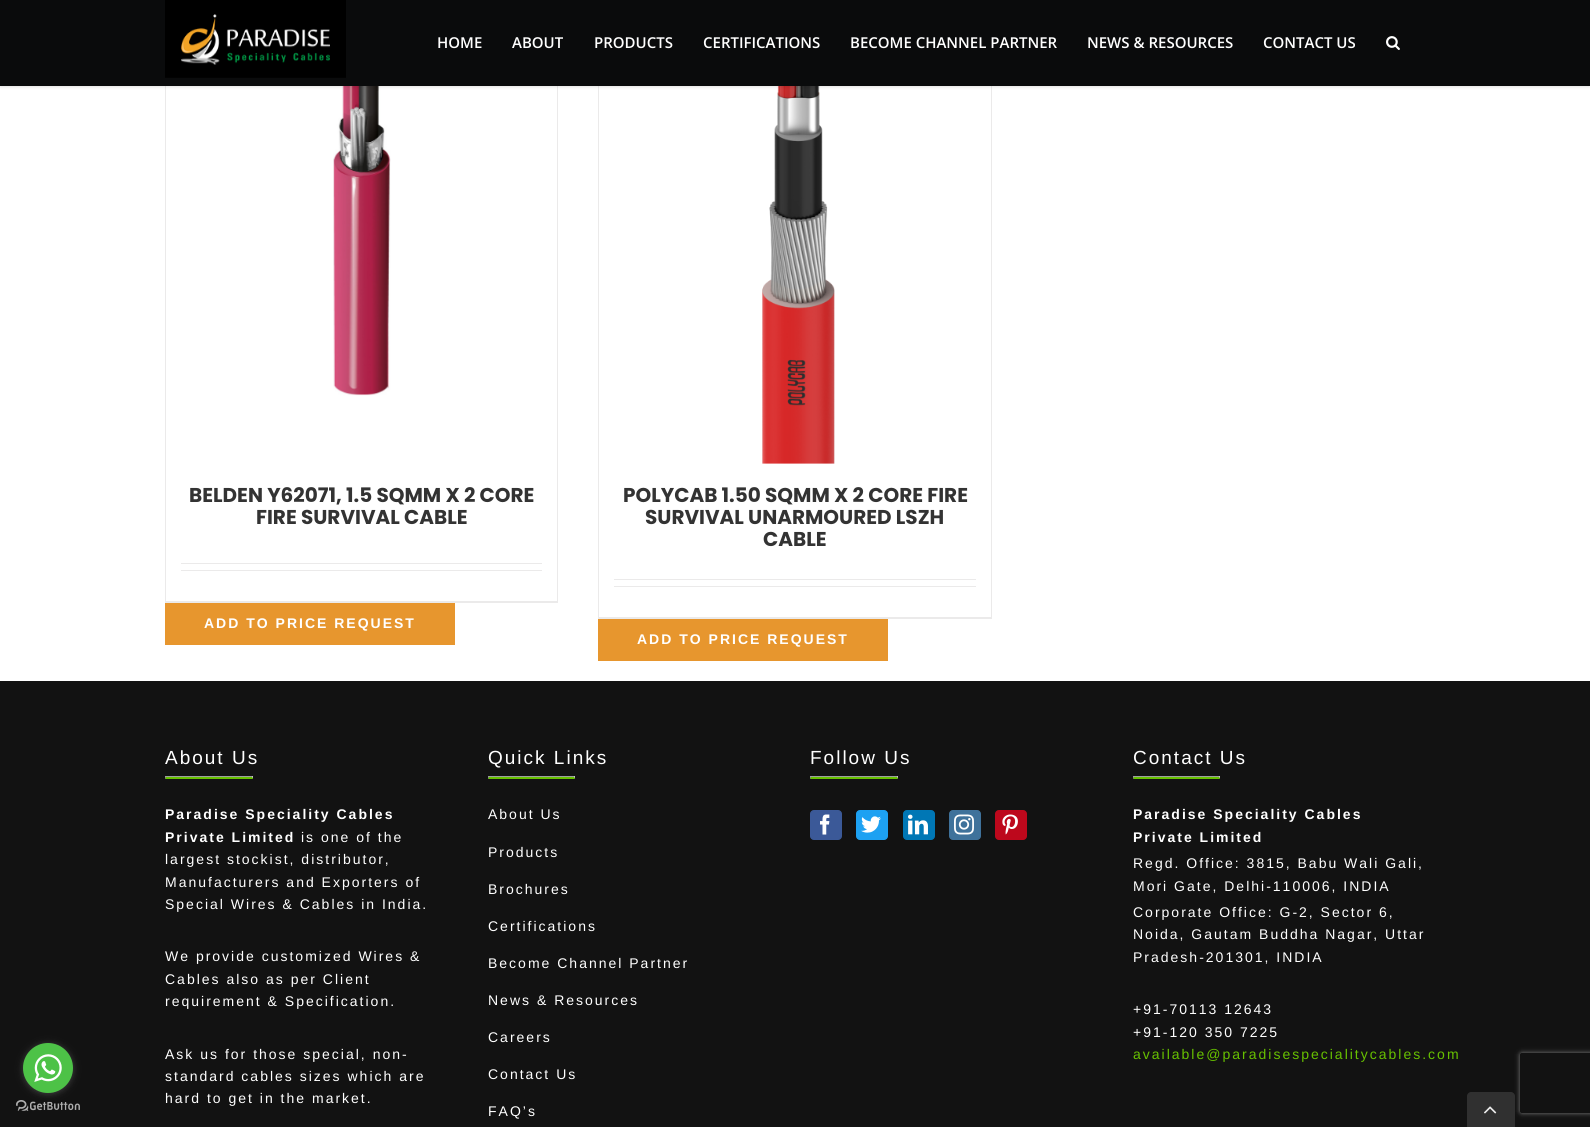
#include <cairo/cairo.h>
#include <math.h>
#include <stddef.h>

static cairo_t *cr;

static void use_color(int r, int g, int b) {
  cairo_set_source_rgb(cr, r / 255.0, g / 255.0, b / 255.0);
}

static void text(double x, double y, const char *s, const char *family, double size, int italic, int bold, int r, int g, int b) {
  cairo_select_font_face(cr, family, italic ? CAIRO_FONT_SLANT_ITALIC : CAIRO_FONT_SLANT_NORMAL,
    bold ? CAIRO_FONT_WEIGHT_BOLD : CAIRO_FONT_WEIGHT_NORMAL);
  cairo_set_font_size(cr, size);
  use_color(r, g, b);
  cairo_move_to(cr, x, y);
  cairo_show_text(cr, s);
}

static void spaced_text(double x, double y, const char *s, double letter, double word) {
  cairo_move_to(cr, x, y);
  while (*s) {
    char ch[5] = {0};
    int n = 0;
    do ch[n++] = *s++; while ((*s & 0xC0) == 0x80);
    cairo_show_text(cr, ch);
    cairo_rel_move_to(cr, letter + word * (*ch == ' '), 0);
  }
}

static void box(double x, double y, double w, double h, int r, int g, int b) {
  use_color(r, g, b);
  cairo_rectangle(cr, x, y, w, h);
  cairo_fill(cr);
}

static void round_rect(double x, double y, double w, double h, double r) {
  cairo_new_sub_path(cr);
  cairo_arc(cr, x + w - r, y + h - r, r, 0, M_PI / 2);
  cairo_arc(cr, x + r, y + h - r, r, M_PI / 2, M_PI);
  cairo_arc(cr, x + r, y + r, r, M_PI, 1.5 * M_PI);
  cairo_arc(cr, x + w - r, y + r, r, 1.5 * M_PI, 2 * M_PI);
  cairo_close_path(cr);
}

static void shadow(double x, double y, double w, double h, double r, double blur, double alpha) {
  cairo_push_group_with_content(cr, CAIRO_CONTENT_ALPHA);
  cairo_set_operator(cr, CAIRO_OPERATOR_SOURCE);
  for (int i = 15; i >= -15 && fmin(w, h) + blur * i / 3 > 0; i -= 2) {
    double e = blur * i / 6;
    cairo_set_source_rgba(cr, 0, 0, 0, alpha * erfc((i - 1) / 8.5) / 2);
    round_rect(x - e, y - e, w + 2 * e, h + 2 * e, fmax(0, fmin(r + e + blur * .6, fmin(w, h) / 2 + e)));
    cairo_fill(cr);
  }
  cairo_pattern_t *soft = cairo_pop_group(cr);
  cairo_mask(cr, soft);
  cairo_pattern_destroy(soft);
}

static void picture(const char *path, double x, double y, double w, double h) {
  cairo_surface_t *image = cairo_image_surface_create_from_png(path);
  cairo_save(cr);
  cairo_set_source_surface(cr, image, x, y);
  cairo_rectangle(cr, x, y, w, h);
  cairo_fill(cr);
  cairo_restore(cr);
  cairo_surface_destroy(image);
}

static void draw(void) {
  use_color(255, 255, 255);
  cairo_paint(cr);
  box(0, 681, 1590, 446, 18, 18, 18);
  picture("img_02.png", 16, 1100, 64, 11);
  use_color(136, 136, 136);
  shadow(23, 1044, 50, 50, 25, 3.5, 0.4);
  use_color(77, 194, 71);
  cairo_arc(cr, 48, 1068, 25, 0, 2 * M_PI);
  cairo_fill(cr);
  picture("img_01.png", 34, 1054, 28, 28);
  box(557, 86, 1, 517, 235, 234, 234);
  box(165, 601, 393, 2, 235, 234, 234);
  box(165, 86, 1, 517, 235, 234, 234);
  picture("img_05.png", 333, 86, 58, 310);
  box(991, 86, 1, 533, 235, 234, 234);
  box(598, 617, 394, 2, 235, 234, 234);
  box(598, 86, 1, 533, 235, 234, 234);
  picture("img_06.png", 762, 86, 73, 378);
  use_color(0, 0, 0);
  shadow(0, 1, 1590, 86, 0, 1.5, 0.12);
  box(0, 0, 1590, 86, 10, 11, 12);
  picture("img_03.png", 165, 0, 181, 78);
  picture("img_04.png", 1386, 36, 14, 14);
  box(181, 563, 361, 1, 235, 234, 234);
  box(181, 570, 361, 1, 235, 234, 234);
  box(165, 603, 290, 42, 231, 150, 46);
  box(614, 579, 362, 1, 235, 234, 234);
  box(614, 586, 362, 1, 235, 234, 234);
  box(598, 619, 290, 42, 231, 150, 46);
  box(165, 776, 88, 1, 159, 159, 159);
  use_color(238, 238, 238);
  cairo_new_path(cr);
  cairo_move_to(cr, 253, 776);
  cairo_line_to(cr, 253, 779);
  cairo_line_to(cr, 252, 777);
  cairo_close_path(cr);
  cairo_fill(cr);
  use_color(103, 193, 0);
  cairo_new_path(cr);
  cairo_move_to(cr, 253, 779);
  cairo_line_to(cr, 165, 779);
  cairo_line_to(cr, 166, 777);
  cairo_line_to(cr, 252, 777);
  cairo_close_path(cr);
  cairo_fill(cr);
  use_color(159, 159, 159);
  cairo_new_path(cr);
  cairo_move_to(cr, 165, 779);
  cairo_line_to(cr, 165, 776);
  cairo_line_to(cr, 166, 777);
  cairo_close_path(cr);
  cairo_fill(cr);
  box(488, 776, 87, 1, 159, 159, 159);
  use_color(238, 238, 238);
  cairo_new_path(cr);
  cairo_move_to(cr, 575, 776);
  cairo_line_to(cr, 575, 779);
  cairo_line_to(cr, 574, 777);
  cairo_close_path(cr);
  cairo_fill(cr);
  use_color(103, 193, 0);
  cairo_new_path(cr);
  cairo_move_to(cr, 575, 779);
  cairo_line_to(cr, 488, 779);
  cairo_line_to(cr, 489, 777);
  cairo_line_to(cr, 574, 777);
  cairo_close_path(cr);
  cairo_fill(cr);
  use_color(159, 159, 159);
  cairo_new_path(cr);
  cairo_move_to(cr, 488, 779);
  cairo_line_to(cr, 488, 776);
  cairo_line_to(cr, 489, 777);
  cairo_close_path(cr);
  cairo_fill(cr);
  box(810, 776, 88, 1, 159, 159, 159);
  use_color(238, 238, 238);
  cairo_new_path(cr);
  cairo_move_to(cr, 898, 776);
  cairo_line_to(cr, 898, 779);
  cairo_line_to(cr, 897, 777);
  cairo_close_path(cr);
  cairo_fill(cr);
  use_color(103, 193, 0);
  cairo_new_path(cr);
  cairo_move_to(cr, 898, 779);
  cairo_line_to(cr, 810, 779);
  cairo_line_to(cr, 811, 777);
  cairo_line_to(cr, 897, 777);
  cairo_close_path(cr);
  cairo_fill(cr);
  use_color(159, 159, 159);
  cairo_new_path(cr);
  cairo_move_to(cr, 810, 779);
  cairo_line_to(cr, 810, 776);
  cairo_line_to(cr, 811, 777);
  cairo_close_path(cr);
  cairo_fill(cr);
  use_color(59, 89, 152);
  round_rect(810.5, 810.5, 31, 29, 3.5);
  cairo_fill_preserve(cr);
  cairo_set_line_width(cr, 1);
  cairo_stroke(cr);
  picture("img_07.png", 820, 814, 10, 21);
  use_color(29, 161, 242);
  round_rect(856.5, 810.5, 31, 29, 3.5);
  cairo_fill_preserve(cr);
  cairo_stroke(cr);
  picture("img_08.png", 861, 816, 20, 17);
  use_color(0, 119, 181);
  round_rect(903.5, 810.5, 31, 29, 3.5);
  cairo_fill_preserve(cr);
  cairo_stroke(cr);
  picture("img_09.png", 908, 814, 20, 21);
  use_color(63, 114, 155);
  round_rect(949.5, 810.5, 31, 29, 3.5);
  cairo_fill_preserve(cr);
  cairo_stroke(cr);
  picture("img_10.png", 954, 814, 20, 21);
  use_color(189, 8, 28);
  round_rect(995.5, 810.5, 31, 29, 3.5);
  cairo_fill_preserve(cr);
  cairo_stroke(cr);
  picture("img_11.png", 1002, 814, 16, 21);
  box(1133, 776, 87, 1, 159, 159, 159);
  use_color(238, 238, 238);
  cairo_new_path(cr);
  cairo_move_to(cr, 1220, 776);
  cairo_line_to(cr, 1220, 779);
  cairo_line_to(cr, 1219, 777);
  cairo_close_path(cr);
  cairo_fill(cr);
  use_color(103, 193, 0);
  cairo_new_path(cr);
  cairo_move_to(cr, 1220, 779);
  cairo_line_to(cr, 1133, 779);
  cairo_line_to(cr, 1134, 777);
  cairo_line_to(cr, 1219, 777);
  cairo_close_path(cr);
  cairo_fill(cr);
  use_color(159, 159, 159);
  cairo_new_path(cr);
  cairo_move_to(cr, 1133, 779);
  cairo_line_to(cr, 1133, 776);
  cairo_line_to(cr, 1134, 777);
  cairo_close_path(cr);
  cairo_fill(cr);
  cairo_save(cr);
  cairo_set_fill_rule(cr, CAIRO_FILL_RULE_EVEN_ODD);
  cairo_new_path(cr);
  cairo_move_to(cr, 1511, 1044);
  cairo_line_to(cr, 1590, 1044);
  cairo_line_to(cr, 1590, 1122);
  cairo_line_to(cr, 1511, 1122);
  cairo_close_path(cr);
  cairo_move_to(cr, 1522, 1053);
  cairo_line_to(cr, 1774, 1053);
  cairo_curve_to(cr, 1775, 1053, 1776, 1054, 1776, 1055);
  cairo_line_to(cr, 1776, 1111);
  cairo_curve_to(cr, 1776, 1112, 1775, 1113, 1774, 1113);
  cairo_line_to(cr, 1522, 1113);
  cairo_curve_to(cr, 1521, 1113, 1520, 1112, 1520, 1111);
  cairo_line_to(cr, 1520, 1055);
  cairo_curve_to(cr, 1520, 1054, 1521, 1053, 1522, 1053);
  cairo_close_path(cr);
  cairo_clip(cr);
  use_color(128, 128, 128);
  shadow(1520, 1053, 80, 60, 2, 2.5, 1);
  cairo_restore(cr);
  use_color(48, 48, 48);
  cairo_new_path(cr);
  cairo_move_to(cr, 1471, 1092);
  cairo_line_to(cr, 1511, 1092);
  cairo_curve_to(cr, 1513, 1092, 1515, 1094, 1515, 1096);
  cairo_line_to(cr, 1515, 1127);
  cairo_line_to(cr, 1467, 1127);
  cairo_line_to(cr, 1467, 1096);
  cairo_curve_to(cr, 1467, 1094, 1469, 1092, 1471, 1092);
  cairo_close_path(cr);
  cairo_fill(cr);
  picture("img_12.png", 1484, 1106, 13, 8);
  text(437, 48, "HOME", "Open Sans SemiBold", 15, 0, 0, 255, 255, 255);
  text(512, 48, "ABOUT", "Open Sans SemiBold", 15, 0, 0, 255, 255, 255);
  text(594, 48, "PRODUCTS", "Open Sans SemiBold", 15, 0, 0, 255, 255, 255);
  text(703, 48, "CERTIFICATIONS", "Open Sans SemiBold", 15, 0, 0, 255, 255, 255);
  text(850, 48, "BECOME CHANNEL PARTNER", "Open Sans SemiBold", 15, 0, 0, 255, 255, 255);
  text(1087, 48, "NEWS & RESOURCES", "Open Sans SemiBold", 15, 0, 0, 255, 255, 255);
  text(1263, 48, "CONTACT US", "Open Sans SemiBold", 15, 0, 0, 255, 255, 255);
  text(189, 502, "BELDEN Y62071, 1.5 SQMM X 2 CORE", "Poppins", 20, 0, 1, 51, 51, 51);
  text(256, 524, "FIRE SURVIVAL CABLE", "Poppins", 20, 0, 1, 51, 51, 51);
  cairo_select_font_face(cr, "Liberation Sans", CAIRO_FONT_SLANT_NORMAL, CAIRO_FONT_WEIGHT_BOLD);
  cairo_set_font_size(cr, 14);
  use_color(255, 255, 255);
  spaced_text(204, 628, "ADD TO PRICE REQUEST", 2, 0);
  text(623, 502, "POLYCAB 1.50 SQMM X 2 CORE FIRE", "Poppins", 20, 0, 1, 51, 51, 51);
  text(645, 524, "SURVIVAL UNARMOURED LSZH", "Poppins", 20, 0, 1, 51, 51, 51);
  text(763, 546, "CABLE", "Poppins", 20, 0, 1, 51, 51, 51);
  cairo_select_font_face(cr, "Liberation Sans", CAIRO_FONT_SLANT_NORMAL, CAIRO_FONT_WEIGHT_BOLD);
  cairo_set_font_size(cr, 14);
  use_color(255, 255, 255);
  spaced_text(637, 644, "ADD TO PRICE REQUEST", 2, 0);
  cairo_select_font_face(cr, "Liberation Sans", CAIRO_FONT_SLANT_NORMAL, CAIRO_FONT_WEIGHT_NORMAL);
  cairo_set_font_size(cr, 19);
  spaced_text(165, 764, "About Us", 2, 0);
  cairo_select_font_face(cr, "Liberation Sans", CAIRO_FONT_SLANT_NORMAL, CAIRO_FONT_WEIGHT_BOLD);
  cairo_set_font_size(cr, 14);
  spaced_text(165, 819, "Paradise Speciality Cables", 2, 0);
  spaced_text(165, 842, "Private Limited", 2, 0);
  cairo_select_font_face(cr, "Liberation Sans", CAIRO_FONT_SLANT_NORMAL, CAIRO_FONT_WEIGHT_NORMAL);
  spaced_text(301, 842, "is one of the", 2, 0);
  spaced_text(165, 864, "largest stockist, distributor,", 2, 0);
  spaced_text(165, 887, "Manufacturers and Exporters of", 2, 0);
  spaced_text(165, 909, "Special Wires & Cables in India.", 2, 0);
  spaced_text(165, 961, "We provide customized Wires &", 2, 0);
  spaced_text(165, 984, "Cables also as per Client", 2, 0);
  spaced_text(165, 1006, "requirement & Specification.", 2, 0);
  spaced_text(165, 1059, "Ask us for those special, non-", 2, 0);
  spaced_text(165, 1081, "standard cables sizes which are", 2, 0);
  spaced_text(165, 1103, "hard to get in the market.", 2, 0);
  cairo_set_font_size(cr, 19);
  spaced_text(488, 764, "Quick Links", 2, 0);
  cairo_set_font_size(cr, 14);
  spaced_text(488, 819, "About Us", 2, 0);
  spaced_text(488, 857, "Products", 2, 0);
  spaced_text(488, 894, "Brochures", 2, 0);
  spaced_text(488, 931, "Certifications", 2, 0);
  spaced_text(488, 968, "Become Channel Partner", 2, 0);
  spaced_text(488, 1005, "News & Resources", 2, 0);
  spaced_text(488, 1042, "Careers", 2, 0);
  spaced_text(488, 1079, "Contact Us", 2, 0);
  spaced_text(488, 1116, "FAQ’s", 2, 0);
  cairo_set_font_size(cr, 19);
  spaced_text(810, 764, "Follow Us", 2, 0);
  spaced_text(1133, 764, "Contact Us", 2, 0);
  cairo_select_font_face(cr, "Liberation Sans", CAIRO_FONT_SLANT_NORMAL, CAIRO_FONT_WEIGHT_BOLD);
  cairo_set_font_size(cr, 14);
  spaced_text(1133, 819, "Paradise Speciality Cables", 2, 0);
  spaced_text(1133, 842, "Private Limited", 2, 0);
  cairo_select_font_face(cr, "Liberation Sans", CAIRO_FONT_SLANT_NORMAL, CAIRO_FONT_WEIGHT_NORMAL);
  spaced_text(1133, 868, "Regd. Office: 3815, Babu Wali Gali,", 2, 0);
  spaced_text(1133, 891, "Mori Gate, Delhi-110006, INDIA", 2, 0);
  spaced_text(1133, 917, "Corporate Office: G-2, Sector 6,", 2, 0);
  spaced_text(1133, 939, "Noida, Gautam Buddha Nagar, Uttar", 2, 0);
  spaced_text(1133, 962, "Pradesh-201301, INDIA", 2, 0);
  spaced_text(1133, 1014, "+91-70113 12643", 2, 0);
  spaced_text(1133, 1037, "+91-120 350 7225", 2, 0);
  use_color(103, 193, 0);
  spaced_text(1133, 1059, "available@paradisespecialitycables.com", 2, 0);
}

int main(void) {
  cairo_surface_t *surface = cairo_image_surface_create(CAIRO_FORMAT_RGB24, 1590, 1127);
  cr = cairo_create(surface);
  cairo_font_options_t *options = cairo_font_options_create();
  cairo_font_options_set_hint_metrics(options, CAIRO_HINT_METRICS_OFF);
  cairo_font_options_set_hint_style(options, CAIRO_HINT_STYLE_NONE);
  cairo_set_font_options(cr, options);
  cairo_set_miter_limit(cr, 4);
  draw();
  cairo_surface_write_to_png(surface, "out.png");
  cairo_font_options_destroy(options);
  cairo_destroy(cr);
  cairo_surface_destroy(surface);
  return 0;
}
